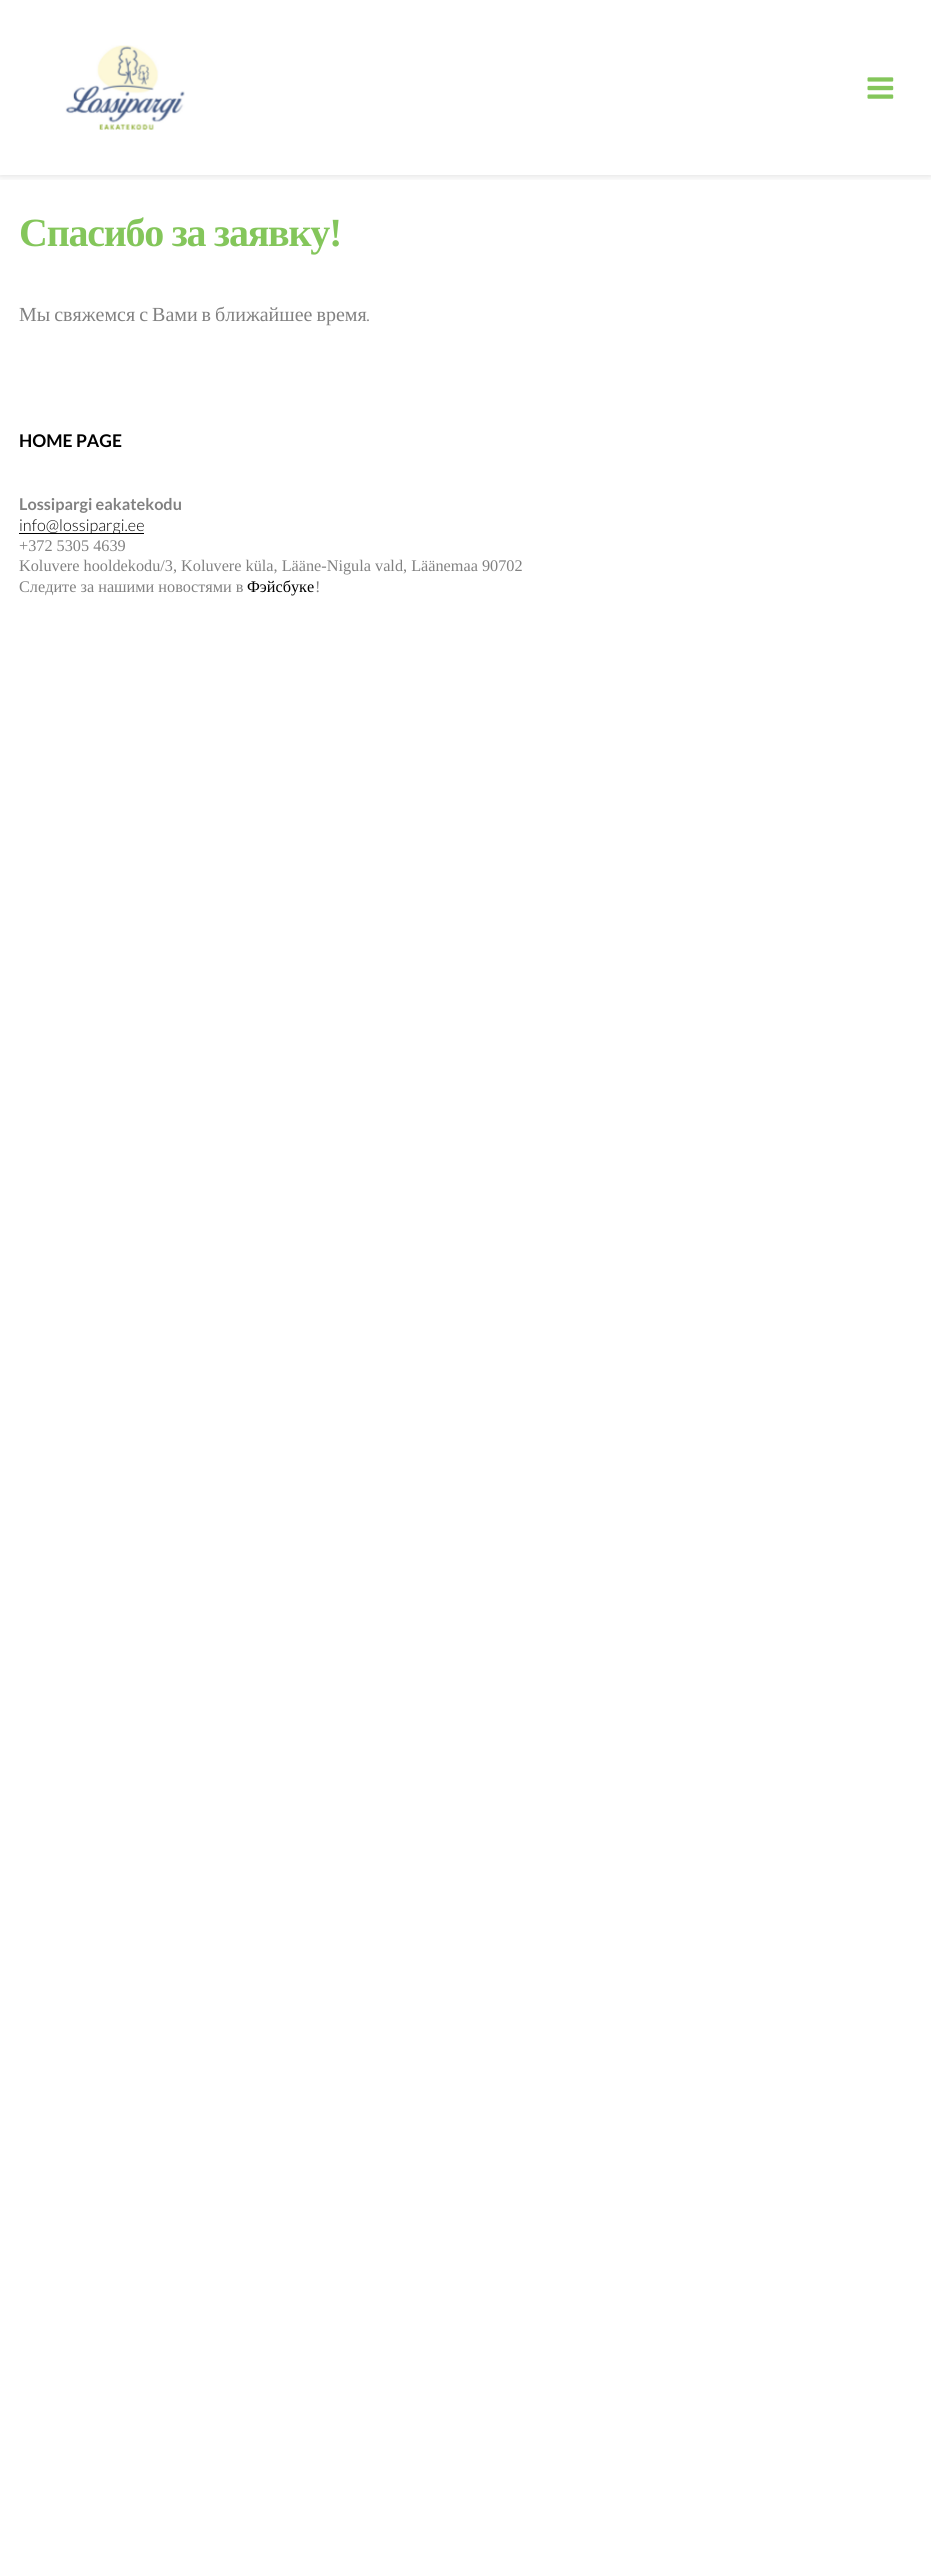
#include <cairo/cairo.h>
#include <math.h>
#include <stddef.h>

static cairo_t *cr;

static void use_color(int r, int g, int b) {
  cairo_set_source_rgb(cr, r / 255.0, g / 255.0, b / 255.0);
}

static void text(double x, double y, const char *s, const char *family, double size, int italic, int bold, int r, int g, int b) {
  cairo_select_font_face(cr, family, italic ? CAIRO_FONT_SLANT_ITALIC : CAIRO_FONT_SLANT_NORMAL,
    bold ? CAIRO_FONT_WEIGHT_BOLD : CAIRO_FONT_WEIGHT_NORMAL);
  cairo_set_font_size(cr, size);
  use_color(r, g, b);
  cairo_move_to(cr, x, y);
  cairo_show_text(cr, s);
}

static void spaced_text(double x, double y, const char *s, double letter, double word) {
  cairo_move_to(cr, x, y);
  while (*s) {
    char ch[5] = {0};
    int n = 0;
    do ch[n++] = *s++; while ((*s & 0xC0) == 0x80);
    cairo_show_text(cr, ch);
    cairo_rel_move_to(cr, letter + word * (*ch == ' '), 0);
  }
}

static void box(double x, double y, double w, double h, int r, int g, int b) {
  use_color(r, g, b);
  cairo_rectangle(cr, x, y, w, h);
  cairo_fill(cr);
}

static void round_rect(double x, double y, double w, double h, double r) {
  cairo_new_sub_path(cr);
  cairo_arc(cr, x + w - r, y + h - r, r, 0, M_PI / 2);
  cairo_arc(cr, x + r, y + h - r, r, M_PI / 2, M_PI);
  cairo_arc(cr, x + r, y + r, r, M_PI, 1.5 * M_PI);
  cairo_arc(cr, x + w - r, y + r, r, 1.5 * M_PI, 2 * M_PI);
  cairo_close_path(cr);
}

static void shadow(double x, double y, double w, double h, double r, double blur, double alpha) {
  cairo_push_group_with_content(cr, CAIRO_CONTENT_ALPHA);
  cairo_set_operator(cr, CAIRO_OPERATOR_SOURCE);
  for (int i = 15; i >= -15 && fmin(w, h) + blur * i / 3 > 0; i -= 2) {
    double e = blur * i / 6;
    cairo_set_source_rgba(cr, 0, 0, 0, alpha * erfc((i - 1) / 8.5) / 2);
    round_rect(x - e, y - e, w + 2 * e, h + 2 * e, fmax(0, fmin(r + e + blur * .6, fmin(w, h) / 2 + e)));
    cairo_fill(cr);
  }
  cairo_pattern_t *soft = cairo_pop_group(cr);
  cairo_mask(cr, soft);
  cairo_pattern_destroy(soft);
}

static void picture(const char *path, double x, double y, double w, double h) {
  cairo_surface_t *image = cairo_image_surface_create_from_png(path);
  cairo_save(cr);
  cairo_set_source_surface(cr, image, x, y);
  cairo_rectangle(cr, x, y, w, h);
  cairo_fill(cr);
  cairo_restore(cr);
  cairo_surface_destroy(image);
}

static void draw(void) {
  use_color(255, 255, 255);
  cairo_paint(cr);
  cairo_save(cr);
  cairo_rectangle(cr, 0, 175, 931, 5);
  cairo_clip(cr);
  use_color(0, 0, 0);
  shadow(0, 0, 931, 175, 0, 4.5, 0.15);
  cairo_restore(cr);
  picture("img_01.png", 65, 45, 120, 85);
  picture("img_02.png", 867, 77, 27, 22);
  box(19, 533, 125, 1, 0, 0, 0);
  cairo_select_font_face(cr, "Liberation Serif", CAIRO_FONT_SLANT_NORMAL, CAIRO_FONT_WEIGHT_BOLD);
  cairo_set_font_size(cr, 40);
  use_color(132, 198, 91);
  spaced_text(19, 246, "Спасибо за заявку!", -1.25, 0);
  cairo_select_font_face(cr, "Liberation Serif", CAIRO_FONT_SLANT_NORMAL, CAIRO_FONT_WEIGHT_NORMAL);
  cairo_set_font_size(cr, 20);
  use_color(129, 129, 129);
  spaced_text(19, 321, "Мы свяжемся с Вами в ближайшее время", 0, -1);
  text(366, 321, ".", "Lato Light", 20, 0, 0, 129, 129, 129);
  text(19, 447, "HOME PAGE", "Lato", 17.5, 0, 1, 0, 0, 0);
  text(19, 510, "Lossipargi eakatekodu", "Lato", 16.25, 0, 1, 129, 129, 129);
  text(19, 531, "info@lossipargi.ee", "Lato Light", 16.25, 0, 0, 0, 0, 0);
  text(19, 551, "+372 5305 4639", "Liberation Serif", 16.25, 0, 0, 129, 129, 129);
  text(19, 571, "Koluvere hooldekodu/3, Koluvere küla, Lääne-Nigula vald, Läänemaa 90702", "Liberation Serif", 16.25, 0, 0, 129, 129, 129);
  text(19, 592, "Следите за нашими новостями в", "Liberation Serif", 16.25, 0, 0, 129, 129, 129);
  text(247, 592, "Фэйсбуке", "Liberation Serif", 16.25, 0, 0, 0, 0, 0);
  text(315, 592, "!", "Liberation Serif", 16.25, 0, 0, 129, 129, 129);
}

int main(void) {
  cairo_surface_t *surface = cairo_image_surface_create(CAIRO_FORMAT_RGB24, 931, 2558);
  cr = cairo_create(surface);
  cairo_font_options_t *options = cairo_font_options_create();
  cairo_font_options_set_hint_metrics(options, CAIRO_HINT_METRICS_OFF);
  cairo_font_options_set_hint_style(options, CAIRO_HINT_STYLE_NONE);
  cairo_set_font_options(cr, options);
  cairo_set_miter_limit(cr, 4);
  draw();
  cairo_surface_write_to_png(surface, "out.png");
  cairo_font_options_destroy(options);
  cairo_destroy(cr);
  cairo_surface_destroy(surface);
  return 0;
}
